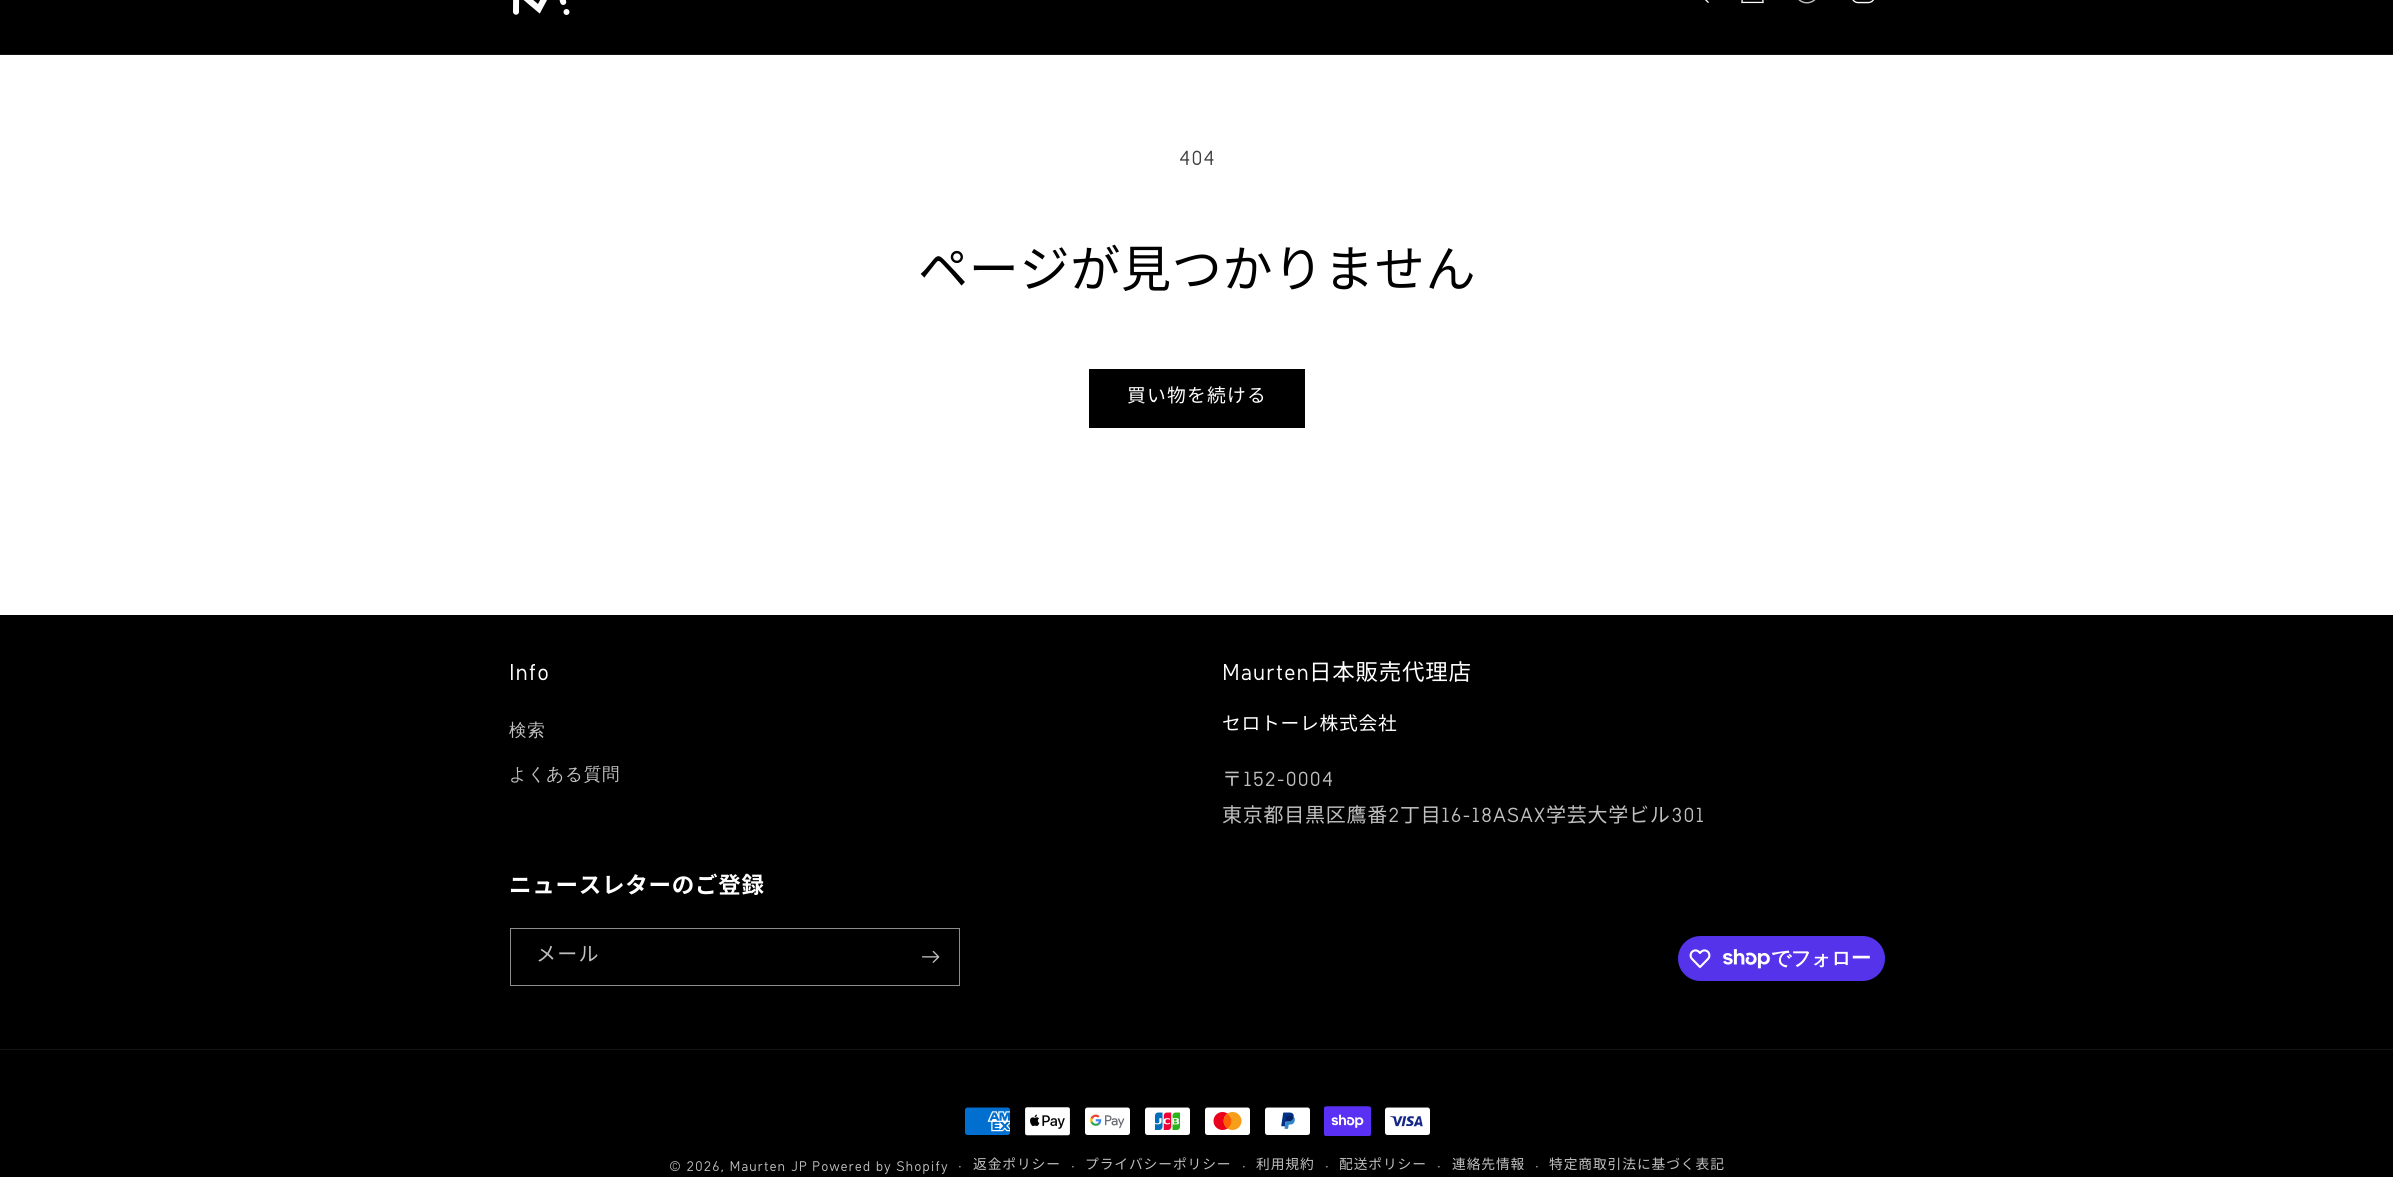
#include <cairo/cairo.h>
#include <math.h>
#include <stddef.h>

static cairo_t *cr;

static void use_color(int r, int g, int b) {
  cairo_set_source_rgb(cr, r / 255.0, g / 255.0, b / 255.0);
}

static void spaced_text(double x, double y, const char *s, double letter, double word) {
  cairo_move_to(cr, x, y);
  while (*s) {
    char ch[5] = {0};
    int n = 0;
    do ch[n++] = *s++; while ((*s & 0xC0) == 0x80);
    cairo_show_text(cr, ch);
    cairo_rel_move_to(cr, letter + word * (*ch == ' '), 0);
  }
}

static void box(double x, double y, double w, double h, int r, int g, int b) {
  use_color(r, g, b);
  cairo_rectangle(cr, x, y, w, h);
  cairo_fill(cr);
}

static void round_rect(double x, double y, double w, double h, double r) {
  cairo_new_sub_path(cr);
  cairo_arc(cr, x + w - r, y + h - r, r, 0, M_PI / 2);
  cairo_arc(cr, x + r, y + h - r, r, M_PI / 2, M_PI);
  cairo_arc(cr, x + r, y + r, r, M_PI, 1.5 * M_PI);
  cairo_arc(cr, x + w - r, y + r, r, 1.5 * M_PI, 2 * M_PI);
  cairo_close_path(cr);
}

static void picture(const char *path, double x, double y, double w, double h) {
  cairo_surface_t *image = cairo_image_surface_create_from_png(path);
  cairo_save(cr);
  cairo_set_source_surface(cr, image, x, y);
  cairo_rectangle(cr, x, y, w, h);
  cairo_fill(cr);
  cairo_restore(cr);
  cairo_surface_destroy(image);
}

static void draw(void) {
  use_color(255, 255, 255);
  cairo_paint(cr);
  box(0, 0, 2393, 54, 0, 0, 0);
  box(0, 54, 2393, 1, 20, 20, 20);
  picture("img_01.png", 513, 0, 57, 15);
  picture("img_02.png", 1705, 0, 4, 3);
  picture("img_03.png", 1741, 0, 23, 4);
  picture("img_04.png", 1798, 0, 18, 4);
  picture("img_05.png", 1852, 0, 22, 4);
  box(1089, 369, 216, 59, 0, 0, 0);
  box(0, 615, 2393, 562, 0, 0, 0);
  cairo_rectangle(cr, 510.5, 928.5, 449, 57);
  use_color(140, 140, 140);
  cairo_set_line_width(cr, 1);
  cairo_stroke(cr);
  picture("img_06.png", 922, 950, 18, 13);
  use_color(84, 51, 235);
  round_rect(1678, 936, 207, 45, 22.5);
  cairo_fill(cr);
  picture("img_07.png", 1689, 949, 22, 20);
  picture("img_08.png", 1723, 949, 47, 20);
  box(0, 1049, 2393, 1, 20, 20, 20);
  picture("img_09.png", 965, 1107, 45, 28);
  picture("img_10.png", 1025, 1107, 45, 29);
  picture("img_11.png", 1085, 1107, 45, 28);
  picture("img_12.png", 1145, 1107, 45, 28);
  picture("img_13.png", 1205, 1107, 45, 28);
  picture("img_14.png", 1265, 1107, 45, 28);
  picture("img_15.png", 1324, 1106, 47, 30);
  picture("img_16.png", 1385, 1107, 45, 28);
  cairo_select_font_face(cr, "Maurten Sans", CAIRO_FONT_SLANT_NORMAL, CAIRO_FONT_WEIGHT_NORMAL);
  cairo_set_font_size(cr, 20);
  use_color(64, 64, 64);
  spaced_text(1179, 165, "404", 0.75, 0);
  cairo_select_font_face(cr, "Noto Sans JP", CAIRO_FONT_SLANT_NORMAL, CAIRO_FONT_WEIGHT_NORMAL);
  cairo_set_font_size(cr, 50);
  use_color(0, 0, 0);
  spaced_text(918, 287, "ページが見つかりません", 0.75, 0);
  cairo_set_font_size(cr, 18.75);
  use_color(255, 255, 255);
  spaced_text(1127, 402, "買い物を続ける", 1.25, 0);
  cairo_select_font_face(cr, "Maurten Sans", CAIRO_FONT_SLANT_NORMAL, CAIRO_FONT_WEIGHT_NORMAL);
  cairo_set_font_size(cr, 22.5);
  spaced_text(509, 680, "Info", 0.75, 0);
  cairo_select_font_face(cr, "WenQuanYi Zen Hei Medium", CAIRO_FONT_SLANT_NORMAL, CAIRO_FONT_WEIGHT_NORMAL);
  cairo_set_font_size(cr, 17.5);
  use_color(191, 191, 191);
  spaced_text(509, 736, "検索", 0.75, 0);
  spaced_text(509, 780, "よくある質問", 0.75, 0);
  cairo_select_font_face(cr, "Maurten Sans", CAIRO_FONT_SLANT_NORMAL, CAIRO_FONT_WEIGHT_NORMAL);
  cairo_set_font_size(cr, 22.5);
  use_color(255, 255, 255);
  spaced_text(1222, 680, "Maurten", 0.75, 0);
  cairo_select_font_face(cr, "Noto Sans JP", CAIRO_FONT_SLANT_NORMAL, CAIRO_FONT_WEIGHT_NORMAL);
  spaced_text(1309, 680, "日本販売代理店", 0.75, 0);
  cairo_set_font_size(cr, 18.75);
  spaced_text(1222, 730, "セロトーレ株式会社", 0.75, 0);
  cairo_set_font_size(cr, 20);
  use_color(191, 191, 191);
  spaced_text(1222, 786, "〒", 0.75, 0);
  cairo_select_font_face(cr, "Maurten Sans", CAIRO_FONT_SLANT_NORMAL, CAIRO_FONT_WEIGHT_NORMAL);
  spaced_text(1243, 786, "152-0004", 0.75, 0);
  cairo_select_font_face(cr, "Noto Sans JP", CAIRO_FONT_SLANT_NORMAL, CAIRO_FONT_WEIGHT_NORMAL);
  spaced_text(1222, 822, "東京都目黒区鷹番", 0.75, 0);
  cairo_select_font_face(cr, "Maurten Sans", CAIRO_FONT_SLANT_NORMAL, CAIRO_FONT_WEIGHT_NORMAL);
  spaced_text(1388, 822, "2", 0.75, 0);
  cairo_select_font_face(cr, "Noto Sans JP", CAIRO_FONT_SLANT_NORMAL, CAIRO_FONT_WEIGHT_NORMAL);
  spaced_text(1400, 822, "丁目", 0.75, 0);
  cairo_select_font_face(cr, "Maurten Sans", CAIRO_FONT_SLANT_NORMAL, CAIRO_FONT_WEIGHT_NORMAL);
  spaced_text(1441, 822, "16-18ASAX", 0.75, 0);
  cairo_select_font_face(cr, "Noto Sans JP", CAIRO_FONT_SLANT_NORMAL, CAIRO_FONT_WEIGHT_NORMAL);
  spaced_text(1546, 822, "学芸大学ビル", 0.75, 0);
  cairo_select_font_face(cr, "Maurten Sans", CAIRO_FONT_SLANT_NORMAL, CAIRO_FONT_WEIGHT_NORMAL);
  spaced_text(1671, 822, "301", 0.75, 0);
  cairo_select_font_face(cr, "Noto Sans JP", CAIRO_FONT_SLANT_NORMAL, CAIRO_FONT_WEIGHT_BOLD);
  cairo_set_font_size(cr, 22.5);
  use_color(255, 255, 255);
  spaced_text(509, 893, "ニュースレターのご登録", 0.75, 0);
  cairo_select_font_face(cr, "Noto Sans JP", CAIRO_FONT_SLANT_NORMAL, CAIRO_FONT_WEIGHT_NORMAL);
  cairo_set_font_size(cr, 20);
  use_color(191, 191, 191);
  spaced_text(536, 961, "メール", 1.25, 0);
  cairo_select_font_face(cr, "WenQuanYi Zen Hei", CAIRO_FONT_SLANT_NORMAL, CAIRO_FONT_WEIGHT_BOLD);
  use_color(255, 255, 255);
  spaced_text(1771, 965, "でフォロー", -0.5, 0);
  cairo_select_font_face(cr, "Maurten Sans", CAIRO_FONT_SLANT_NORMAL, CAIRO_FONT_WEIGHT_NORMAL);
  cairo_set_font_size(cr, 13.75);
  use_color(191, 191, 191);
  spaced_text(669, 1171, "© 2026, Maurten JP", 0.9, 0);
  spaced_text(812, 1171, "Powered by Shopify", 0.9, 0);
  cairo_set_font_size(cr, 15);
  spaced_text(958, 1171, "·", 0.9, 0);
  cairo_select_font_face(cr, "Noto Sans JP", CAIRO_FONT_SLANT_NORMAL, CAIRO_FONT_WEIGHT_NORMAL);
  cairo_set_font_size(cr, 13.75);
  spaced_text(973, 1169, "返金ポリシー", 0.9, 0);
  cairo_select_font_face(cr, "Maurten Sans", CAIRO_FONT_SLANT_NORMAL, CAIRO_FONT_WEIGHT_NORMAL);
  cairo_set_font_size(cr, 15);
  spaced_text(1071, 1171, "·", 0.9, 0);
  cairo_select_font_face(cr, "Noto Sans JP", CAIRO_FONT_SLANT_NORMAL, CAIRO_FONT_WEIGHT_NORMAL);
  cairo_set_font_size(cr, 13.75);
  spaced_text(1085, 1169, "プライバシーポリシー", 0.9, 0);
  cairo_select_font_face(cr, "Maurten Sans", CAIRO_FONT_SLANT_NORMAL, CAIRO_FONT_WEIGHT_NORMAL);
  cairo_set_font_size(cr, 15);
  spaced_text(1242, 1171, "·", 0.9, 0);
  cairo_select_font_face(cr, "Noto Sans JP", CAIRO_FONT_SLANT_NORMAL, CAIRO_FONT_WEIGHT_NORMAL);
  cairo_set_font_size(cr, 13.75);
  spaced_text(1256, 1169, "利用規約", 0.9, 0);
  cairo_select_font_face(cr, "Maurten Sans", CAIRO_FONT_SLANT_NORMAL, CAIRO_FONT_WEIGHT_NORMAL);
  cairo_set_font_size(cr, 15);
  spaced_text(1325, 1171, "·", 0.9, 0);
  cairo_select_font_face(cr, "Noto Sans JP", CAIRO_FONT_SLANT_NORMAL, CAIRO_FONT_WEIGHT_NORMAL);
  cairo_set_font_size(cr, 13.75);
  spaced_text(1339, 1169, "配送ポリシー", 0.9, 0);
  cairo_select_font_face(cr, "Maurten Sans", CAIRO_FONT_SLANT_NORMAL, CAIRO_FONT_WEIGHT_NORMAL);
  cairo_set_font_size(cr, 15);
  spaced_text(1437, 1171, "·", 0.9, 0);
  cairo_select_font_face(cr, "Noto Sans JP", CAIRO_FONT_SLANT_NORMAL, CAIRO_FONT_WEIGHT_NORMAL);
  cairo_set_font_size(cr, 13.75);
  spaced_text(1452, 1169, "連絡先情報", 0.9, 0);
  cairo_select_font_face(cr, "Maurten Sans", CAIRO_FONT_SLANT_NORMAL, CAIRO_FONT_WEIGHT_NORMAL);
  cairo_set_font_size(cr, 15);
  spaced_text(1535, 1171, "·", 0.9, 0);
  cairo_select_font_face(cr, "Noto Sans JP", CAIRO_FONT_SLANT_NORMAL, CAIRO_FONT_WEIGHT_NORMAL);
  cairo_set_font_size(cr, 13.75);
  spaced_text(1549, 1169, "特定商取引法に基づく表記", 0.9, 0);
}

int main(void) {
  cairo_surface_t *surface = cairo_image_surface_create(CAIRO_FORMAT_RGB24, 2393, 1177);
  cr = cairo_create(surface);
  cairo_font_options_t *options = cairo_font_options_create();
  cairo_font_options_set_hint_metrics(options, CAIRO_HINT_METRICS_OFF);
  cairo_font_options_set_hint_style(options, CAIRO_HINT_STYLE_NONE);
  cairo_set_font_options(cr, options);
  cairo_set_miter_limit(cr, 4);
  draw();
  cairo_surface_write_to_png(surface, "out.png");
  cairo_font_options_destroy(options);
  cairo_destroy(cr);
  cairo_surface_destroy(surface);
  return 0;
}
